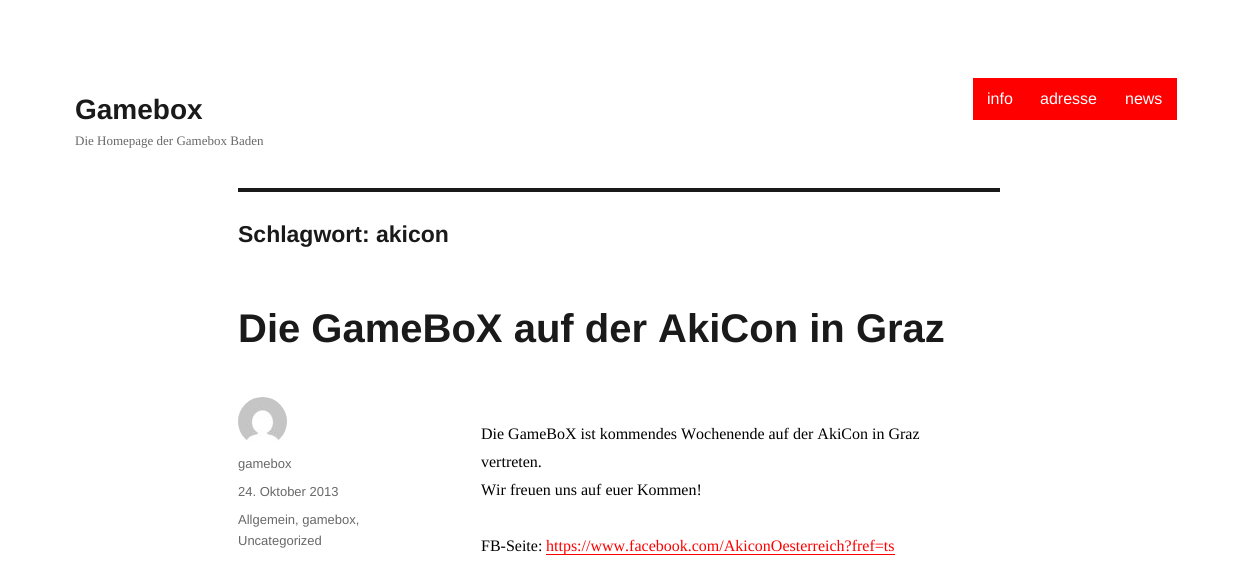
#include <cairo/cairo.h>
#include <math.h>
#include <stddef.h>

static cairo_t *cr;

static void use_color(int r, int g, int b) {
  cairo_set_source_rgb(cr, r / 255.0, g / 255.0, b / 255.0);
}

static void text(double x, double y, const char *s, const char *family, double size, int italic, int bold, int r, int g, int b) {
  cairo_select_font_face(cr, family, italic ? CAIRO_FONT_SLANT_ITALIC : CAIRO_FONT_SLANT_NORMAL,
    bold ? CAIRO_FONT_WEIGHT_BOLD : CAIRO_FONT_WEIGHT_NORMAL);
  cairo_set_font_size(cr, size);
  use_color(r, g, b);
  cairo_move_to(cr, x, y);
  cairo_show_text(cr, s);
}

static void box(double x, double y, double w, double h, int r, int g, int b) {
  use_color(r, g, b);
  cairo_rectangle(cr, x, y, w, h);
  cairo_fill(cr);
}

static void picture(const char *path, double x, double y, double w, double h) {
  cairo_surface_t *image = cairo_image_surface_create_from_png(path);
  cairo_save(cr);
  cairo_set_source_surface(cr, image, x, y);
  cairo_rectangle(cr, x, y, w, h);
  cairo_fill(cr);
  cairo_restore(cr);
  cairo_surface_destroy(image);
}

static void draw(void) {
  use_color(255, 255, 255);
  cairo_paint(cr);
  box(973, 78, 204, 42, 255, 0, 0);
  box(238, 188, 762, 4, 26, 26, 26);
  picture("img_01.png", 238, 397, 49, 45);
  box(546, 554, 349, 1, 255, 0, 0);
  text(75, 119, "Gamebox", "Liberation Sans", 28, 0, 1, 26, 26, 26);
  text(75, 145, "Die Homepage der Gamebox Baden", "Liberation Serif", 13, 0, 0, 104, 104, 104);
  text(987, 104, "info", "Liberation Sans", 16, 0, 0, 255, 255, 255);
  text(1040, 104, "adresse", "Liberation Sans", 16, 0, 0, 255, 255, 255);
  text(1125, 104, "news", "Liberation Sans", 16, 0, 0, 255, 255, 255);
  text(238, 242, "Schlagwort: akicon", "Liberation Sans", 23, 0, 1, 26, 26, 26);
  text(238, 342, "Die GameBoX auf der AkiCon in Graz", "Liberation Sans", 40, 0, 1, 26, 26, 26);
  text(238, 468, "gamebox", "Liberation Sans", 13, 0, 0, 104, 104, 104);
  text(238, 496, "24. Oktober 2013", "Liberation Sans", 13, 0, 0, 104, 104, 104);
  text(238, 524, "Allgemein, gamebox,", "Liberation Sans", 13, 0, 0, 104, 104, 104);
  text(238, 545, "Uncategorized", "Liberation Sans", 13, 0, 0, 104, 104, 104);
  text(481, 439, "Die GameBoX ist kommendes Wochenende auf der AkiCon in Graz", "Liberation Serif", 16, 0, 0, 0, 0, 0);
  text(481, 467, "vertreten.", "Liberation Serif", 16, 0, 0, 0, 0, 0);
  text(481, 495, "Wir freuen uns auf euer Kommen!", "Liberation Serif", 16, 0, 0, 0, 0, 0);
  text(481, 551, "FB-Seite:", "Liberation Serif", 16, 0, 0, 0, 0, 0);
  text(546, 551, "https://www.facebook.com/AkiconOesterreich?fref=ts", "Liberation Serif", 16, 0, 0, 255, 0, 0);
}

int main(void) {
  cairo_surface_t *surface = cairo_image_surface_create(CAIRO_FORMAT_RGB24, 1238, 569);
  cr = cairo_create(surface);
  cairo_font_options_t *options = cairo_font_options_create();
  cairo_font_options_set_hint_metrics(options, CAIRO_HINT_METRICS_OFF);
  cairo_font_options_set_hint_style(options, CAIRO_HINT_STYLE_NONE);
  cairo_set_font_options(cr, options);
  cairo_set_miter_limit(cr, 4);
  draw();
  cairo_surface_write_to_png(surface, "out.png");
  cairo_font_options_destroy(options);
  cairo_destroy(cr);
  cairo_surface_destroy(surface);
  return 0;
}
